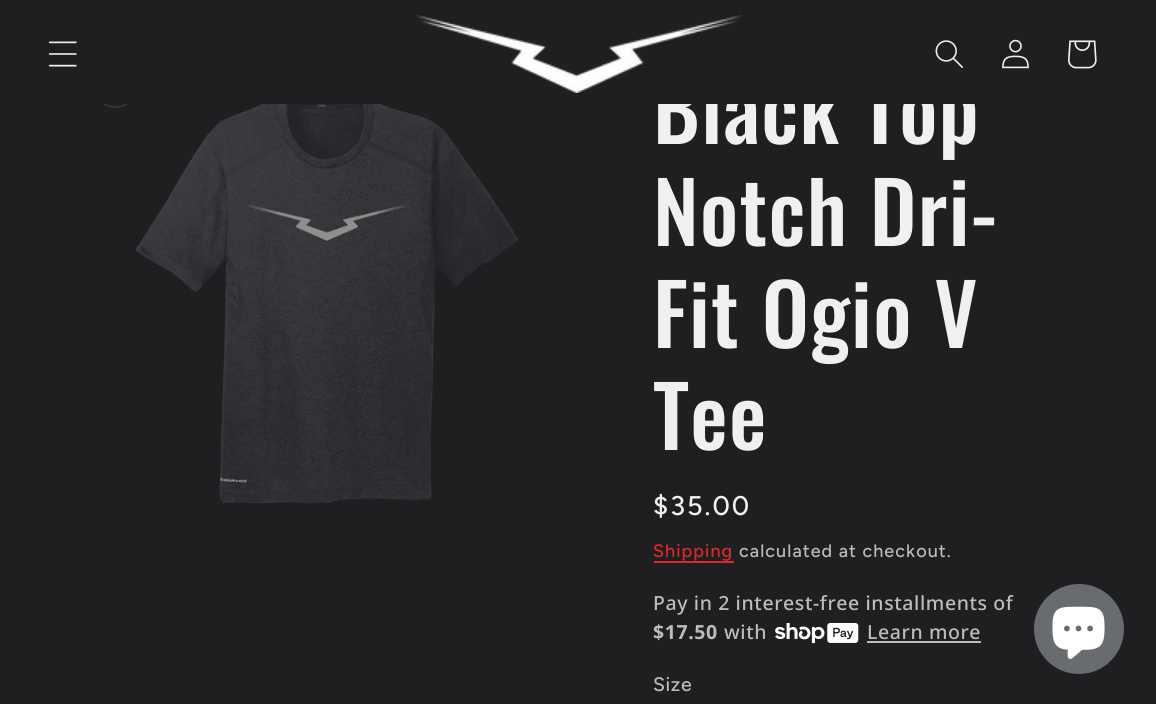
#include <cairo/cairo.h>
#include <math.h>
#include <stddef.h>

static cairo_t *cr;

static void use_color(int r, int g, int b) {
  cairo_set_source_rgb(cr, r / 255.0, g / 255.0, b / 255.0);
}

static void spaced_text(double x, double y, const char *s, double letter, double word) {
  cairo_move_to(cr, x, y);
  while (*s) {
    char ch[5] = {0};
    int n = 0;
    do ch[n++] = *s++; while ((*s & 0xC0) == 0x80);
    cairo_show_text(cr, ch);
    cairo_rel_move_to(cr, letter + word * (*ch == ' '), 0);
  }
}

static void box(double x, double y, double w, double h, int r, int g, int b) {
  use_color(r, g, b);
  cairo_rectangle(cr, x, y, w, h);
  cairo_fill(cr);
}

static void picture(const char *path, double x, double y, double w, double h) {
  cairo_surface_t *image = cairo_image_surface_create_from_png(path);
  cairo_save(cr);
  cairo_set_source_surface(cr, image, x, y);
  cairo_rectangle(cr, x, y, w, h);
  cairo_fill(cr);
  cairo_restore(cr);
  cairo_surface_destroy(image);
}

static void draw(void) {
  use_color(31, 31, 33);
  cairo_paint(cr);
  picture("img_01.png", 48, 41, 29, 26);
  picture("img_04.png", 1002, 39, 27, 30);
  picture("img_05.png", 1068, 40, 29, 29);
  picture("img_06.png", 135, 104, 383, 400);
  cairo_arc(cr, 115.5, 85.5, 21.5, 0, 2 * M_PI);
  use_color(52, 52, 54);
  cairo_stroke(cr);
  box(654, 561, 80, 2, 221, 41, 42);
  picture("img_07.png", 775, 623, 84, 21);
  box(867, 641, 114, 2, 188, 188, 188);
  use_color(104, 108, 112);
  cairo_arc(cr, 1079, 629, 45, 0, 2 * M_PI);
  cairo_fill(cr);
  picture("img_08.png", 1052, 606, 53, 53);
  cairo_select_font_face(cr, "Oswald Medium", CAIRO_FONT_SLANT_NORMAL, CAIRO_FONT_WEIGHT_NORMAL);
  cairo_set_font_size(cr, 84);
  use_color(240, 240, 240);
  spaced_text(653, 144, "Black Top", 1.25, 0);
  box(93, 63, 882, 41, 31, 31, 33);
  picture("img_03.png", 935, 40, 28, 28);
  picture("img_02.png", 415, 15, 328, 78);
  use_color(240, 240, 240);
  spaced_text(653, 246, "Notch Dri-", 1.25, 0);
  spaced_text(653, 348, "Fit Ogio V", 1.25, 0);
  spaced_text(653, 450, "Tee", 1.25, 0);
  cairo_select_font_face(cr, "Figtree Medium", CAIRO_FONT_SLANT_NORMAL, CAIRO_FONT_WEIGHT_NORMAL);
  cairo_set_font_size(cr, 27);
  spaced_text(653, 515, "$35.00", 2, 0);
  cairo_set_font_size(cr, 18);
  use_color(221, 41, 42);
  spaced_text(653, 557, "Shipping", 1.05, 0);
  use_color(188, 188, 188);
  spaced_text(739, 557, "calculated at checkout.", 1.05, 0);
  cairo_select_font_face(cr, "Noto Sans Medium", CAIRO_FONT_SLANT_NORMAL, CAIRO_FONT_WEIGHT_NORMAL);
  cairo_set_font_size(cr, 19.5);
  spaced_text(653, 610, "Pay in 2 interest-free installments of", 0.6, 0);
  cairo_select_font_face(cr, "Noto Sans", CAIRO_FONT_SLANT_NORMAL, CAIRO_FONT_WEIGHT_BOLD);
  spaced_text(653, 639, "$17.50", 0.6, 0);
  cairo_select_font_face(cr, "Noto Sans Medium", CAIRO_FONT_SLANT_NORMAL, CAIRO_FONT_WEIGHT_NORMAL);
  spaced_text(724, 639, "with", 0.6, 0);
  spaced_text(867, 639, "Learn more", 0.6, 0);
  cairo_select_font_face(cr, "Figtree Medium", CAIRO_FONT_SLANT_NORMAL, CAIRO_FONT_WEIGHT_NORMAL);
  spaced_text(653, 691, "Size", 0.6, 0);
}

int main(void) {
  cairo_surface_t *surface = cairo_image_surface_create(CAIRO_FORMAT_RGB24, 1156, 704);
  cr = cairo_create(surface);
  cairo_font_options_t *options = cairo_font_options_create();
  cairo_font_options_set_hint_metrics(options, CAIRO_HINT_METRICS_OFF);
  cairo_font_options_set_hint_style(options, CAIRO_HINT_STYLE_NONE);
  cairo_set_font_options(cr, options);
  cairo_set_miter_limit(cr, 4);
  draw();
  cairo_surface_write_to_png(surface, "out.png");
  cairo_font_options_destroy(options);
  cairo_destroy(cr);
  cairo_surface_destroy(surface);
  return 0;
}
